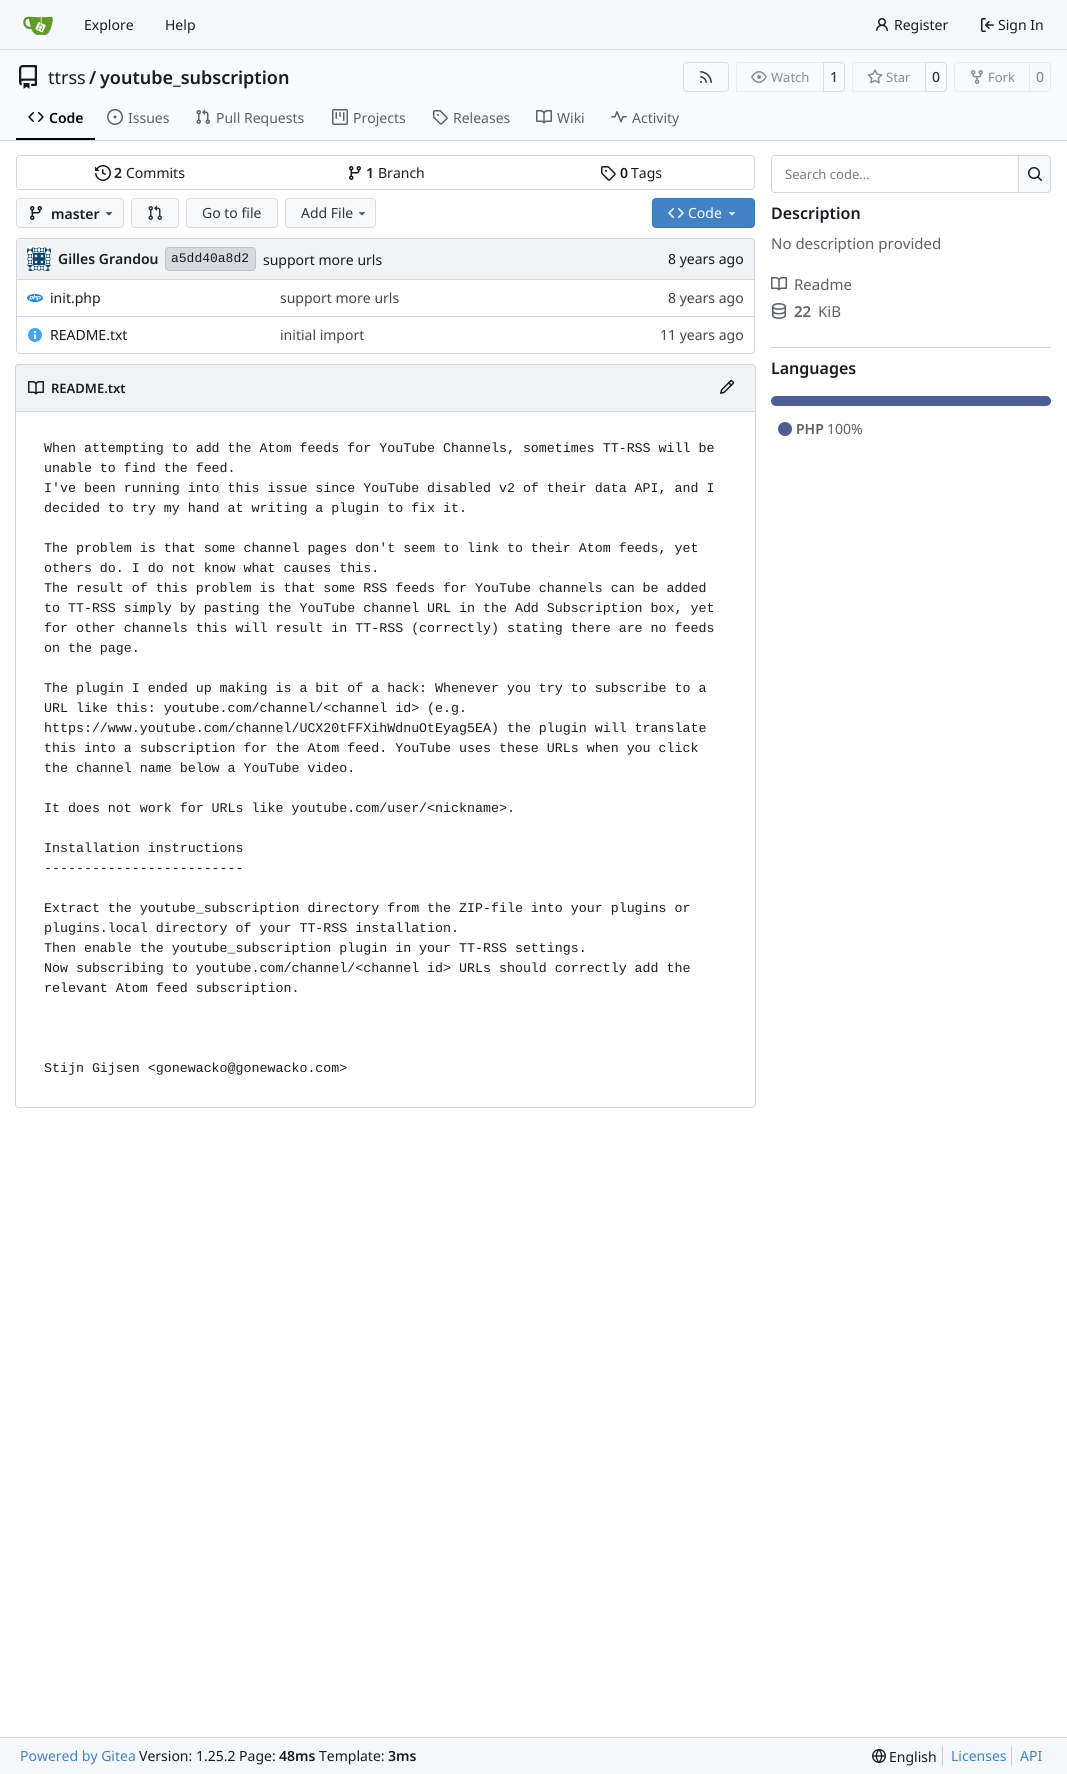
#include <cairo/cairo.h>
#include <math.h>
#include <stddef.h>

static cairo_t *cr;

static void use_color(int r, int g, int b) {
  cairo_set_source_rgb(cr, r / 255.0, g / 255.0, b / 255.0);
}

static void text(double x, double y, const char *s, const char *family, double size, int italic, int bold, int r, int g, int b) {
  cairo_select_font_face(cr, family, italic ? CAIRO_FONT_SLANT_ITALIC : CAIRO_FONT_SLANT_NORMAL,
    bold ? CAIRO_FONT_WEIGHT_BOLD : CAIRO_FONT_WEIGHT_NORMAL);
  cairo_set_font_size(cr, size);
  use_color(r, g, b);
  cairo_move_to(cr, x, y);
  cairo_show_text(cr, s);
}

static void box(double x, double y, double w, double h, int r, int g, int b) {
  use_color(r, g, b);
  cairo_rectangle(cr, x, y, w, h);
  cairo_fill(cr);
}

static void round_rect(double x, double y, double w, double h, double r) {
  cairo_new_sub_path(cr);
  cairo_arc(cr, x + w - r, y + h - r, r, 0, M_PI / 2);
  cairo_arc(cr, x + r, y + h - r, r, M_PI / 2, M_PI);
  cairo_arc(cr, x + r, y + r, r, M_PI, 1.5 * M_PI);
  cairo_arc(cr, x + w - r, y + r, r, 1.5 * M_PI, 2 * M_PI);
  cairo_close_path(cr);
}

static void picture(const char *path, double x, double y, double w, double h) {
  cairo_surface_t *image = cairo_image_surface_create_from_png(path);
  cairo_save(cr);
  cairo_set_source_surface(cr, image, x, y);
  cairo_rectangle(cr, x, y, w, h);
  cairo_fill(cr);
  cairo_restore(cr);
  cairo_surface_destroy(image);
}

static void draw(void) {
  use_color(255, 255, 255);
  cairo_paint(cr);
  box(0, 0, 1067, 49, 246, 247, 250);
  box(0, 49, 1067, 1, 208, 215, 222);
  picture("img_01.png", 23, 16, 30, 19);
  picture("img_02.png", 876, 18, 12, 13);
  picture("img_03.png", 981, 18, 13, 14);
  box(0, 50, 1067, 90, 249, 250, 251);
  picture("img_04.png", 19, 65, 18, 24);
  round_rect(683.5, 62.5, 45, 29, 3.5);
  use_color(221, 222, 225);
  cairo_set_line_width(cr, 1);
  cairo_stroke(cr);
  picture("img_05.png", 700, 71, 12, 12);
  cairo_new_path(cr);
  cairo_move_to(cr, 823.5, 62.5);
  cairo_line_to(cr, 841, 62.5);
  cairo_curve_to(cr, 843, 62.5, 844.5, 64, 844.5, 66);
  cairo_line_to(cr, 844.5, 88);
  cairo_curve_to(cr, 844.5, 90, 843, 91.5, 841, 91.5);
  cairo_line_to(cr, 823.5, 91.5);
  cairo_close_path(cr);
  cairo_stroke(cr);
  cairo_set_source_rgba(cr, 0.973, 0.976, 0.984, 0.55);
  cairo_new_path(cr);
  cairo_move_to(cr, 740, 62);
  cairo_line_to(cr, 824, 62);
  cairo_line_to(cr, 824, 92);
  cairo_line_to(cr, 740, 92);
  cairo_curve_to(cr, 738, 92, 736, 90, 736, 88);
  cairo_line_to(cr, 736, 66);
  cairo_curve_to(cr, 736, 64, 738, 62, 740, 62);
  cairo_close_path(cr);
  cairo_fill(cr);
  cairo_rectangle(cr, 736.5, 62.5, 87, 29);
  cairo_set_source_rgba(cr, 0, 0, 0.09, 0.06);
  cairo_stroke(cr);
  picture("img_06.png", 751, 71, 16, 12);
  cairo_new_path(cr);
  cairo_move_to(cr, 925.5, 62.5);
  cairo_line_to(cr, 943, 62.5);
  cairo_curve_to(cr, 945, 62.5, 946.5, 64, 946.5, 66);
  cairo_line_to(cr, 946.5, 88);
  cairo_curve_to(cr, 946.5, 90, 945, 91.5, 943, 91.5);
  cairo_line_to(cr, 925.5, 91.5);
  cairo_close_path(cr);
  use_color(221, 222, 225);
  cairo_stroke(cr);
  cairo_set_source_rgba(cr, 0.973, 0.976, 0.984, 0.55);
  cairo_new_path(cr);
  cairo_move_to(cr, 856, 62);
  cairo_line_to(cr, 926, 62);
  cairo_line_to(cr, 926, 92);
  cairo_line_to(cr, 856, 92);
  cairo_curve_to(cr, 854, 92, 852, 90, 852, 88);
  cairo_line_to(cr, 852, 66);
  cairo_curve_to(cr, 852, 64, 854, 62, 856, 62);
  cairo_close_path(cr);
  cairo_fill(cr);
  cairo_rectangle(cr, 852.5, 62.5, 73, 29);
  cairo_set_source_rgba(cr, 0, 0, 0.09, 0.06);
  cairo_stroke(cr);
  picture("img_07.png", 867, 69, 16, 15);
  cairo_new_path(cr);
  cairo_move_to(cr, 958, 62.5);
  cairo_line_to(cr, 1029.5, 62.5);
  cairo_line_to(cr, 1029.5, 91.5);
  cairo_line_to(cr, 958, 91.5);
  cairo_curve_to(cr, 956, 91.5, 954.5, 90, 954.5, 88);
  cairo_line_to(cr, 954.5, 66);
  cairo_curve_to(cr, 954.5, 64, 956, 62.5, 958, 62.5);
  cairo_close_path(cr);
  use_color(233, 234, 237);
  cairo_stroke(cr);
  picture("img_08.png", 971, 70, 12, 14);
  use_color(248, 249, 251);
  cairo_new_path(cr);
  cairo_move_to(cr, 1029.5, 62.5);
  cairo_line_to(cr, 1047, 62.5);
  cairo_curve_to(cr, 1049, 62.5, 1050.5, 64, 1050.5, 66);
  cairo_line_to(cr, 1050.5, 88);
  cairo_curve_to(cr, 1050.5, 90, 1049, 91.5, 1047, 91.5);
  cairo_line_to(cr, 1029.5, 91.5);
  cairo_close_path(cr);
  cairo_fill_preserve(cr);
  use_color(233, 234, 237);
  cairo_stroke(cr);
  box(16, 138, 79, 2, 1, 5, 10);
  picture("img_09.png", 28, 112, 16, 10);
  picture("img_10.png", 107, 109, 16, 16);
  picture("img_11.png", 196, 109, 14, 15);
  picture("img_12.png", 332, 109, 16, 16);
  picture("img_13.png", 433, 110, 15, 15);
  picture("img_14.png", 536, 110, 16, 14);
  picture("img_15.png", 611, 111, 16, 12);
  box(0, 140, 1067, 1, 208, 215, 222);
  round_rect(16.5, 155.5, 738, 34, 3.5);
  cairo_stroke(cr);
  use_color(255, 255, 255);
  round_rect(17, 156, 737, 33, 4);
  cairo_fill(cr);
  picture("img_16.png", 95, 165, 16, 16);
  picture("img_17.png", 349, 166, 12, 14);
  picture("img_18.png", 601, 166, 15, 15);
  use_color(248, 249, 251);
  round_rect(16.5, 198.5, 107, 29, 3.5);
  cairo_fill_preserve(cr);
  use_color(220, 221, 225);
  cairo_stroke(cr);
  picture("img_19.png", 30, 206, 12, 14);
  picture("img_20.png", 105, 212, 8, 4);
  use_color(248, 249, 251);
  round_rect(131.5, 198.5, 47, 29, 3.5);
  cairo_fill_preserve(cr);
  use_color(220, 221, 225);
  cairo_stroke(cr);
  picture("img_21.png", 148, 205, 14, 15);
  use_color(248, 249, 251);
  round_rect(186.5, 198.5, 91, 29, 3.5);
  cairo_fill_preserve(cr);
  use_color(220, 221, 225);
  cairo_stroke(cr);
  use_color(248, 249, 251);
  round_rect(285.5, 198.5, 90, 29, 3.5);
  cairo_fill_preserve(cr);
  use_color(220, 221, 225);
  cairo_stroke(cr);
  picture("img_22.png", 358, 212, 8, 4);
  use_color(65, 131, 196);
  round_rect(652, 198, 103, 30, 4);
  cairo_fill(cr);
  round_rect(652.5, 198.5, 102, 29, 3.5);
  cairo_set_source_rgba(cr, 0, 0, 0.09, 0.11);
  cairo_stroke(cr);
  picture("img_23.png", 668, 208, 16, 10);
  picture("img_24.png", 728, 212, 8, 4);
  round_rect(16.5, 238.5, 738, 115, 3.5);
  use_color(208, 215, 222);
  cairo_stroke(cr);
  use_color(241, 243, 245);
  cairo_new_path(cr);
  cairo_move_to(cr, 21, 239);
  cairo_line_to(cr, 750, 239);
  cairo_curve_to(cr, 752, 239, 754, 241, 754, 243);
  cairo_line_to(cr, 754, 279);
  cairo_line_to(cr, 17, 279);
  cairo_line_to(cr, 17, 243);
  cairo_curve_to(cr, 17, 241, 19, 239, 21, 239);
  cairo_close_path(cr);
  cairo_fill(cr);
  picture("img_25.png", 27, 247, 24, 24);
  use_color(214, 218, 222);
  round_rect(165, 247, 91, 24, 4);
  cairo_fill(cr);
  round_rect(165.5, 247.5, 90, 23, 3.5);
  cairo_set_source_rgba(cr, 0, 0, 0.09, 0.11);
  cairo_stroke(cr);
  box(17, 279, 633, 1, 208, 215, 222);
  picture("img_26.png", 27, 293, 16, 10);
  box(650, 279, 104, 1, 208, 215, 222);
  box(17, 316, 633, 1, 208, 215, 222);
  picture("img_27.png", 28, 328, 14, 14);
  box(650, 316, 104, 1, 208, 215, 222);
  use_color(241, 243, 245);
  cairo_new_path(cr);
  cairo_move_to(cr, 19, 364.5);
  cairo_line_to(cr, 752, 364.5);
  cairo_curve_to(cr, 754, 364.5, 755.5, 366, 755.5, 368);
  cairo_line_to(cr, 755.5, 411.5);
  cairo_line_to(cr, 15.5, 411.5);
  cairo_line_to(cr, 15.5, 368);
  cairo_curve_to(cr, 15.5, 366, 17, 364.5, 19, 364.5);
  cairo_close_path(cr);
  cairo_fill_preserve(cr);
  use_color(208, 215, 222);
  cairo_stroke(cr);
  picture("img_28.png", 28, 381, 16, 14);
  picture("img_29.png", 720, 379, 15, 15);
  cairo_set_fill_rule(cr, CAIRO_FILL_RULE_EVEN_ODD);
  cairo_new_path(cr);
  cairo_move_to(cr, 15, 412);
  cairo_line_to(cr, 756, 412);
  cairo_line_to(cr, 756, 1104);
  cairo_curve_to(cr, 756, 1106, 754, 1108, 752, 1108);
  cairo_line_to(cr, 19, 1108);
  cairo_curve_to(cr, 17, 1108, 15, 1106, 15, 1104);
  cairo_close_path(cr);
  cairo_move_to(cr, 16, 412);
  cairo_line_to(cr, 755, 412);
  cairo_line_to(cr, 755, 1104);
  cairo_curve_to(cr, 755, 1106, 754, 1107, 752, 1107);
  cairo_line_to(cr, 19, 1107);
  cairo_curve_to(cr, 17, 1107, 16, 1106, 16, 1104);
  cairo_close_path(cr);
  cairo_fill(cr);
  cairo_new_path(cr);
  cairo_move_to(cr, 775, 155);
  cairo_line_to(cr, 1018, 155);
  cairo_line_to(cr, 1018, 193);
  cairo_line_to(cr, 775, 193);
  cairo_curve_to(cr, 773, 193, 771, 191, 771, 189);
  cairo_line_to(cr, 771, 159);
  cairo_curve_to(cr, 771, 157, 773, 155, 775, 155);
  cairo_close_path(cr);
  cairo_move_to(cr, 775, 156);
  cairo_line_to(cr, 1018, 156);
  cairo_line_to(cr, 1018, 192);
  cairo_line_to(cr, 775, 192);
  cairo_curve_to(cr, 773, 192, 772, 191, 772, 189);
  cairo_line_to(cr, 772, 159);
  cairo_curve_to(cr, 772, 157, 773, 156, 775, 156);
  cairo_close_path(cr);
  cairo_fill(cr);
  use_color(248, 249, 251);
  cairo_new_path(cr);
  cairo_move_to(cr, 1018.5, 155.5);
  cairo_line_to(cr, 1047, 155.5);
  cairo_curve_to(cr, 1049, 155.5, 1050.5, 157, 1050.5, 159);
  cairo_line_to(cr, 1050.5, 189);
  cairo_curve_to(cr, 1050.5, 191, 1049, 192.5, 1047, 192.5);
  cairo_line_to(cr, 1018.5, 192.5);
  cairo_close_path(cr);
  cairo_fill_preserve(cr);
  use_color(208, 215, 222);
  cairo_stroke(cr);
  picture("img_30.png", 1028, 167, 14, 14);
  picture("img_31.png", 771, 277, 16, 14);
  picture("img_32.png", 772, 303, 14, 16);
  box(771, 347, 280, 1, 208, 215, 222);
  use_color(79, 93, 149);
  round_rect(771, 396, 280, 10, 5);
  cairo_fill(cr);
  cairo_arc(cr, 785, 429, 7, 0, 2 * M_PI);
  cairo_fill(cr);
  box(0, 1738, 1067, 36, 246, 247, 250);
  box(0, 1737, 1067, 1, 208, 215, 222);
  picture("img_33.png", 872, 1749, 14, 14);
  box(942, 1746, 1, 20, 199, 206, 213);
  box(1011, 1746, 1, 20, 199, 206, 213);
  text(84, 30, "Explore", "Noto Sans", 14, 0, 0, 24, 28, 33);
  text(165, 30, "Help", "Noto Sans", 14, 0, 0, 24, 28, 33);
  text(894, 30, "Register", "Noto Sans", 14, 0, 0, 24, 28, 33);
  text(998, 30, "Sign In", "Noto Sans", 14, 0, 0, 24, 28, 33);
  text(48, 84, "ttrss", "Noto Sans", 18, 0, 0, 24, 28, 33);
  text(89, 84, "/", "Noto Sans SemiBold", 18, 0, 0, 24, 28, 33);
  text(100, 84, "youtube_subscription", "Noto Sans SemiBold", 18, 0, 0, 24, 28, 33);
  text(771, 82, "Watch", "Noto Sans", 13, 0, 0, 138, 142, 145);
  text(830, 82, "1", "Noto Sans Medium", 14, 0, 0, 48, 54, 59);
  text(886, 82, "Star", "Noto Sans", 13, 0, 0, 138, 142, 145);
  text(932, 82, "0", "Noto Sans Medium", 14, 0, 0, 48, 54, 59);
  text(988, 82, "Fork", "Noto Sans", 13, 0, 0, 138, 142, 145);
  text(1036, 82, "0", "Noto Sans Medium", 14, 0, 0, 138, 142, 145);
  text(49, 123, "Code", "Noto Sans SemiBold", 14, 0, 0, 1, 5, 10);
  text(128, 123, "Issues", "Noto Sans", 14, 0, 0, 91, 97, 103);
  text(216, 123, "Pull Requests", "Noto Sans", 14, 0, 0, 91, 97, 103);
  text(353, 123, "Projects", "Noto Sans", 14, 0, 0, 91, 97, 103);
  text(453, 123, "Releases", "Noto Sans", 14, 0, 0, 91, 97, 103);
  text(557, 123, "Wiki", "Noto Sans", 14, 0, 0, 91, 97, 103);
  text(632, 123, "Activity", "Noto Sans", 14, 0, 0, 91, 97, 103);
  text(114, 178, "2", "Noto Sans SemiBold", 14, 0, 0, 24, 28, 33);
  text(126, 178, "Commits", "Noto Sans", 14, 0, 0, 24, 28, 33);
  text(366, 178, "1", "Noto Sans SemiBold", 14, 0, 0, 24, 28, 33);
  text(378, 178, "Branch", "Noto Sans", 14, 0, 0, 24, 28, 33);
  text(620, 178, "0", "Noto Sans SemiBold", 14, 0, 0, 24, 28, 33);
  text(631, 178, "Tags", "Noto Sans", 14, 0, 0, 24, 28, 33);
  text(51, 219, "master", "Noto Sans SemiBold", 14, 0, 0, 24, 28, 33);
  text(202, 218, "Go to file", "Noto Sans", 14, 0, 0, 48, 54, 59);
  text(301, 218, "Add File", "Noto Sans", 14, 0, 0, 48, 54, 59);
  text(688, 218, "Code", "Noto Sans", 14, 0, 0, 255, 255, 255);
  text(58, 264, "Gilles Grandou", "Noto Sans SemiBold", 14, 0, 0, 24, 28, 33);
  text(171, 262, "a5dd40a8d2", "Liberation Mono", 13, 0, 0, 24, 28, 33);
  text(263, 265, "support more urls", "Noto Sans", 14, 0, 0, 24, 28, 33);
  text(668, 264, "8 years ago", "Noto Sans", 14, 0, 0, 24, 28, 33);
  text(50, 303, "init.php", "Noto Sans", 14, 0, 0, 24, 28, 33);
  text(280, 303, "support more urls", "Noto Sans", 14, 0, 0, 64, 71, 77);
  text(668, 303, "8 years ago", "Noto Sans", 14, 0, 0, 64, 71, 77);
  text(50, 340, "README.txt", "Noto Sans", 14, 0, 0, 24, 28, 33);
  text(280, 340, "initial import", "Noto Sans", 14, 0, 0, 64, 71, 77);
  text(660, 340, "11 years ago", "Noto Sans", 14, 0, 0, 64, 71, 77);
  text(51, 393, "README.txt", "Noto Sans SemiBold", 13, 0, 0, 24, 28, 33);
  text(44, 452, "When attempting to add the Atom feeds for YouTube Channels, sometimes TT-RSS will be", "Liberation Mono", 13.3, 0, 0, 24, 28, 33);
  text(44, 472, "unable to find the feed.", "Liberation Mono", 13.3, 0, 0, 24, 28, 33);
  text(44, 492, "I've been running into this issue since YouTube disabled v2 of their data API, and I", "Liberation Mono", 13.3, 0, 0, 24, 28, 33);
  text(44, 512, "decided to try my hand at writing a plugin to fix it.", "Liberation Mono", 13.3, 0, 0, 24, 28, 33);
  text(44, 552, "The problem is that some channel pages don't seem to link to their Atom feeds, yet", "Liberation Mono", 13.3, 0, 0, 24, 28, 33);
  text(44, 572, "others do. I do not know what causes this.", "Liberation Mono", 13.3, 0, 0, 24, 28, 33);
  text(44, 592, "The result of this problem is that some RSS feeds for YouTube channels can be added", "Liberation Mono", 13.3, 0, 0, 24, 28, 33);
  text(44, 612, "to TT-RSS simply by pasting the YouTube channel URL in the Add Subscription box, yet", "Liberation Mono", 13.3, 0, 0, 24, 28, 33);
  text(44, 632, "for other channels this will result in TT-RSS (correctly) stating there are no feeds", "Liberation Mono", 13.3, 0, 0, 24, 28, 33);
  text(44, 652, "on the page.", "Liberation Mono", 13.3, 0, 0, 24, 28, 33);
  text(44, 692, "The plugin I ended up making is a bit of a hack: Whenever you try to subscribe to a", "Liberation Mono", 13.3, 0, 0, 24, 28, 33);
  text(44, 712, "URL like this: youtube.com/channel/<channel id> (e.g.", "Liberation Mono", 13.3, 0, 0, 24, 28, 33);
  text(44, 732, "https://www.youtube.com/channel/UCX20tFFXihWdnuOtEyag5EA) the plugin will translate", "Liberation Mono", 13.3, 0, 0, 24, 28, 33);
  text(44, 752, "this into a subscription for the Atom feed. YouTube uses these URLs when you click", "Liberation Mono", 13.3, 0, 0, 24, 28, 33);
  text(44, 772, "the channel name below a YouTube video.", "Liberation Mono", 13.3, 0, 0, 24, 28, 33);
  text(44, 812, "It does not work for URLs like youtube.com/user/<nickname>.", "Liberation Mono", 13.3, 0, 0, 24, 28, 33);
  text(44, 852, "Installation instructions", "Liberation Mono", 13.3, 0, 0, 24, 28, 33);
  text(44, 872, "-------------------------", "Liberation Mono", 13.3, 0, 0, 24, 28, 33);
  text(44, 912, "Extract the youtube_subscription directory from the ZIP-file into your plugins or", "Liberation Mono", 13.3, 0, 0, 24, 28, 33);
  text(44, 932, "plugins.local directory of your TT-RSS installation.", "Liberation Mono", 13.3, 0, 0, 24, 28, 33);
  text(44, 952, "Then enable the youtube_subscription plugin in your TT-RSS settings.", "Liberation Mono", 13.3, 0, 0, 24, 28, 33);
  text(44, 972, "Now subscribing to youtube.com/channel/<channel id> URLs should correctly add the", "Liberation Mono", 13.3, 0, 0, 24, 28, 33);
  text(44, 992, "relevant Atom feed subscription.", "Liberation Mono", 13.3, 0, 0, 24, 28, 33);
  text(44, 1072, "Stijn Gijsen <gonewacko@gonewacko.com>", "Liberation Mono", 13.3, 0, 0, 24, 28, 33);
  text(785, 179, "Search code…", "Noto Sans", 13, 0, 0, 116, 124, 132);
  text(771, 219, "Description", "Noto Sans SemiBold", 16, 0, 0, 24, 28, 33);
  text(771, 249, "No description provided", "Noto Sans", 15, 0, 0, 91, 97, 103);
  text(794, 290, "Readme", "Noto Sans", 15, 0, 0, 91, 97, 103);
  text(794, 317, "22", "Noto Sans SemiBold", 15, 0, 0, 91, 97, 103);
  text(818, 317, "KiB", "Noto Sans", 15, 0, 0, 91, 97, 103);
  text(771, 374, "Languages", "Noto Sans SemiBold", 16, 0, 0, 24, 28, 33);
  text(796, 434, "PHP", "Noto Sans SemiBold", 14, 0, 0, 91, 97, 103);
  text(827, 434, "100%", "Noto Sans", 14, 0, 0, 91, 97, 103);
  text(20, 1761, "Powered by Gitea", "Noto Sans", 14, 0, 0, 65, 131, 196);
  text(139, 1761, "Version: 1.25.2 Page:", "Noto Sans", 14, 0, 0, 24, 28, 33);
  text(279, 1761, "48ms", "Noto Sans SemiBold", 14, 0, 0, 24, 28, 33);
  text(319, 1761, "Template:", "Noto Sans", 14, 0, 0, 24, 28, 33);
  text(388, 1761, "3ms", "Noto Sans SemiBold", 14, 0, 0, 24, 28, 33);
  text(889, 1762, "English", "Noto Sans", 14, 0, 0, 24, 28, 33);
  text(951, 1761, "Licenses", "Noto Sans", 14, 0, 0, 65, 131, 196);
  text(1020, 1761, "API", "Noto Sans", 14, 0, 0, 65, 131, 196);
}

int main(void) {
  cairo_surface_t *surface = cairo_image_surface_create(CAIRO_FORMAT_RGB24, 1067, 1774);
  cr = cairo_create(surface);
  cairo_font_options_t *options = cairo_font_options_create();
  cairo_font_options_set_hint_metrics(options, CAIRO_HINT_METRICS_OFF);
  cairo_font_options_set_hint_style(options, CAIRO_HINT_STYLE_NONE);
  cairo_set_font_options(cr, options);
  cairo_set_miter_limit(cr, 4);
  draw();
  cairo_surface_write_to_png(surface, "out.png");
  cairo_font_options_destroy(options);
  cairo_destroy(cr);
  cairo_surface_destroy(surface);
  return 0;
}
